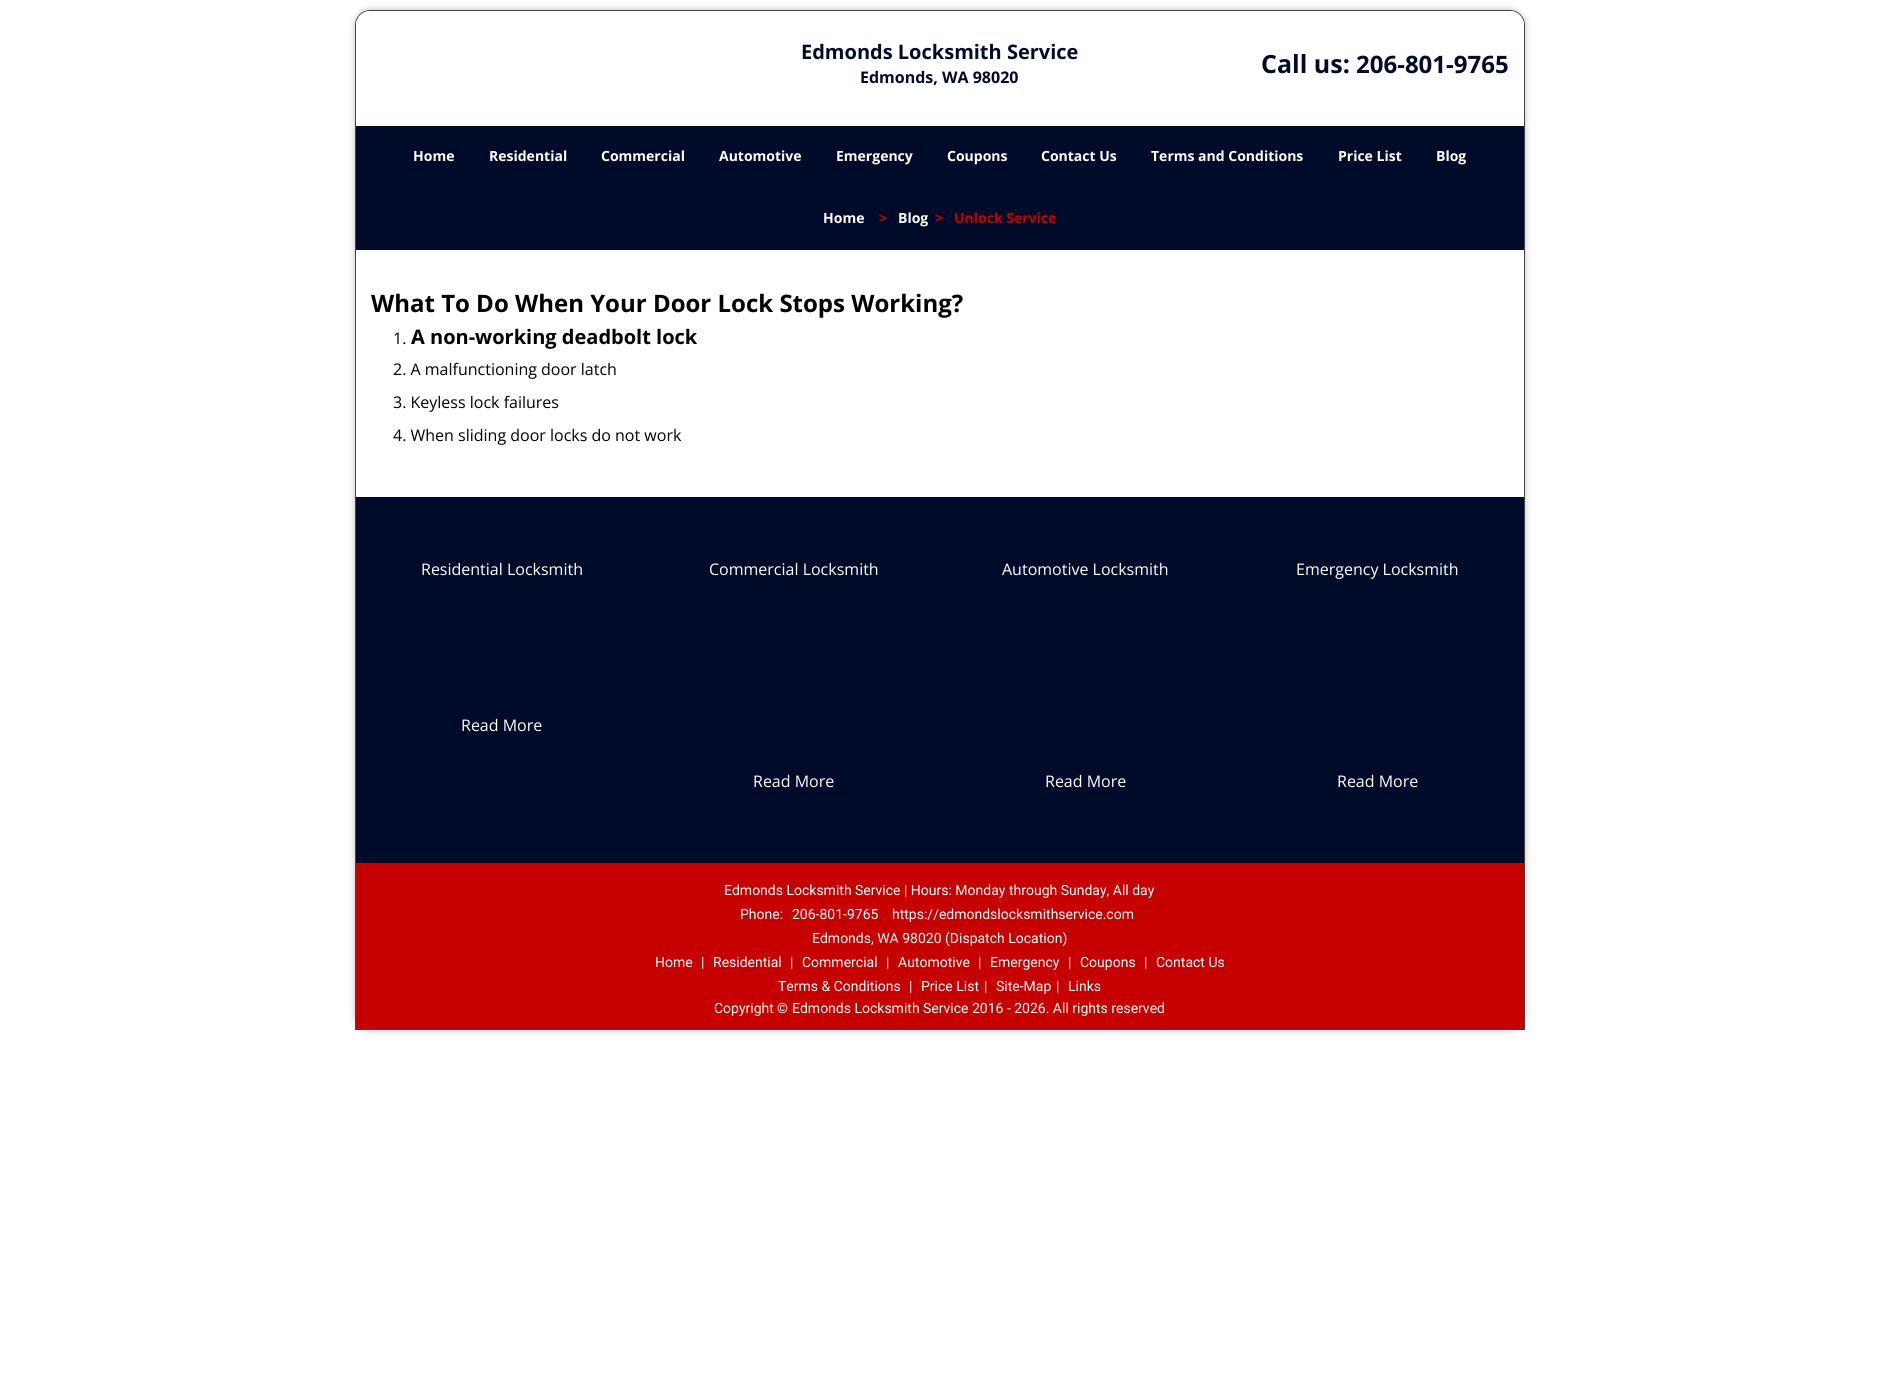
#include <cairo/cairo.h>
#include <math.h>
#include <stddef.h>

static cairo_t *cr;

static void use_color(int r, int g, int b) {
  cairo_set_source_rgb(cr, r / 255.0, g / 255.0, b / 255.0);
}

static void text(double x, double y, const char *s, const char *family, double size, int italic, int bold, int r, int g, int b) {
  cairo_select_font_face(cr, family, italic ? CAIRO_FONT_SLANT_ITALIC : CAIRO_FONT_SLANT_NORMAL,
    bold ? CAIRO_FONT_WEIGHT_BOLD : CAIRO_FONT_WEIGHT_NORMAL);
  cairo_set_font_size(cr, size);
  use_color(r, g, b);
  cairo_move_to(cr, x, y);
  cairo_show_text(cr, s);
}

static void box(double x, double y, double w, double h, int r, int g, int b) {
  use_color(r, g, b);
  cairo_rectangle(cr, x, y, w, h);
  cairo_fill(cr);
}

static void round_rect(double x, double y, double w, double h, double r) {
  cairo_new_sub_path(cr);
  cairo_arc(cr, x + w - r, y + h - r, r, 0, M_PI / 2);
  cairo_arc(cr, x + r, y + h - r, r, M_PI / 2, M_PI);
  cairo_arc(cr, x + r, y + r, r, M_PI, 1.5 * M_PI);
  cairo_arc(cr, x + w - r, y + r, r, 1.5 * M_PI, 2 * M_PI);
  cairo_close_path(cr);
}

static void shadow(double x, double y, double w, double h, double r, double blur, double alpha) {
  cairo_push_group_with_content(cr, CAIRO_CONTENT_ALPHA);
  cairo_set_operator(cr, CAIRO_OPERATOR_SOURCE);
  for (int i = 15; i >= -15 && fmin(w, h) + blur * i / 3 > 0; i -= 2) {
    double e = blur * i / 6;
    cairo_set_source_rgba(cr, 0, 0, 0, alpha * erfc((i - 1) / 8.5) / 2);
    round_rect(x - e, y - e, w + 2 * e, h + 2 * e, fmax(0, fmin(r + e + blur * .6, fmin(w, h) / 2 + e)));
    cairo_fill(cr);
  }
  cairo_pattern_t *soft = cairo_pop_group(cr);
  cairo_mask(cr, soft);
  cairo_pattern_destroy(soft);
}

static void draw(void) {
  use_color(255, 255, 255);
  cairo_paint(cr);
  cairo_save(cr);
  cairo_set_fill_rule(cr, CAIRO_FILL_RULE_EVEN_ODD);
  cairo_new_path(cr);
  cairo_move_to(cr, 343, 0);
  cairo_line_to(cr, 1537, 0);
  cairo_line_to(cr, 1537, 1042);
  cairo_line_to(cr, 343, 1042);
  cairo_close_path(cr);
  cairo_move_to(cr, 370, 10);
  cairo_line_to(cr, 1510, 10);
  cairo_curve_to(cr, 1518.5, 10, 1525, 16.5, 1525, 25);
  cairo_line_to(cr, 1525, 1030);
  cairo_line_to(cr, 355, 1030);
  cairo_line_to(cr, 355, 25);
  cairo_curve_to(cr, 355, 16.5, 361.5, 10, 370, 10);
  cairo_close_path(cr);
  cairo_clip(cr);
  use_color(191, 191, 191);
  shadow(355, 10, 1170, 1020, 15, 3.5, 1);
  cairo_restore(cr);
  cairo_new_path(cr);
  cairo_move_to(cr, 370, 10.5);
  cairo_line_to(cr, 1510, 10.5);
  cairo_curve_to(cr, 1518, 10.5, 1524.5, 17, 1524.5, 25);
  cairo_line_to(cr, 1524.5, 1029.5);
  cairo_line_to(cr, 355.5, 1029.5);
  cairo_line_to(cr, 355.5, 25);
  cairo_curve_to(cr, 355.5, 17, 362, 10.5, 370, 10.5);
  cairo_close_path(cr);
  use_color(65, 65, 65);
  cairo_set_line_width(cr, 1);
  cairo_stroke(cr);
  use_color(255, 255, 255);
  cairo_new_path(cr);
  cairo_move_to(cr, 370, 11);
  cairo_line_to(cr, 1510, 11);
  cairo_curve_to(cr, 1517.5, 11, 1524, 17.5, 1524, 25);
  cairo_line_to(cr, 1524, 126);
  cairo_line_to(cr, 356, 126);
  cairo_line_to(cr, 356, 25);
  cairo_curve_to(cr, 356, 17.5, 362.5, 11, 370, 11);
  cairo_close_path(cr);
  cairo_fill(cr);
  box(356, 126, 1168, 124, 0, 11, 41);
  box(356, 497, 1168, 366, 0, 11, 41);
  box(356, 863, 1168, 166, 198, 0, 0);
  text(801, 59, "Edmonds Locksmith Service", "Open Sans", 20, 0, 1, 0, 11, 41);
  text(860, 83, "Edmonds, WA 98020", "Open Sans", 16, 0, 1, 0, 11, 41);
  text(1261, 73, "Call us:", "Open Sans", 25, 0, 1, 0, 11, 41);
  text(1356, 73, "206-801-9765", "Open Sans", 24, 0, 1, 0, 11, 41);
  text(413, 161, "Home", "Open Sans", 14, 0, 1, 255, 255, 255);
  text(489, 161, "Residential", "Open Sans", 14, 0, 1, 255, 255, 255);
  text(601, 161, "Commercial", "Open Sans", 14, 0, 1, 255, 255, 255);
  text(719, 161, "Automotive", "Open Sans", 14, 0, 1, 255, 255, 255);
  text(836, 161, "Emergency", "Open Sans", 14, 0, 1, 255, 255, 255);
  text(947, 161, "Coupons", "Open Sans", 14, 0, 1, 255, 255, 255);
  text(1041, 161, "Contact Us", "Open Sans", 14, 0, 1, 255, 255, 255);
  text(1151, 161, "Terms and Conditions", "Open Sans", 14, 0, 1, 255, 255, 255);
  text(1338, 161, "Price List", "Open Sans", 14, 0, 1, 255, 255, 255);
  text(1436, 161, "Blog", "Open Sans", 14, 0, 1, 255, 255, 255);
  text(823, 223, "Home", "Open Sans", 14, 0, 1, 255, 255, 255);
  text(879, 223, ">", "Open Sans", 14, 0, 1, 198, 0, 0);
  text(898, 223, "Blog", "Open Sans", 14, 0, 1, 255, 255, 255);
  text(935, 223, ">", "Open Sans", 14, 0, 1, 198, 0, 0);
  text(954, 223, "Unlock Service", "Open Sans", 14, 0, 1, 198, 0, 0);
  text(371, 312, "What To Do When Your Door Lock Stops Working?", "Open Sans", 24, 0, 1, 0, 0, 0);
  text(393, 344, "1.", "Open Sans", 16, 0, 0, 0, 0, 0);
  text(411, 344, "A non-working deadbolt lock", "Open Sans", 20, 0, 1, 0, 0, 0);
  text(393, 375, "2. A malfunctioning door latch", "Open Sans", 16, 0, 0, 0, 0, 0);
  text(393, 408, "3. Keyless lock failures", "Open Sans", 16, 0, 0, 0, 0, 0);
  text(393, 441, "4. When sliding door locks do not work", "Open Sans", 16, 0, 0, 0, 0, 0);
  text(421, 575, "Residential Locksmith", "Open Sans", 16, 0, 0, 255, 255, 255);
  text(461, 731, "Read More", "Open Sans", 16, 0, 0, 255, 255, 255);
  text(709, 575, "Commercial Locksmith", "Open Sans", 16, 0, 0, 255, 255, 255);
  text(753, 787, "Read More", "Open Sans", 16, 0, 0, 255, 255, 255);
  text(1002, 575, "Automotive Locksmith", "Open Sans", 16, 0, 0, 255, 255, 255);
  text(1045, 787, "Read More", "Open Sans", 16, 0, 0, 255, 255, 255);
  text(1296, 575, "Emergency Locksmith", "Open Sans", 16, 0, 0, 255, 255, 255);
  text(1337, 787, "Read More", "Open Sans", 16, 0, 0, 255, 255, 255);
  text(724, 895, "Edmonds Locksmith Service | Hours: Monday through Sunday, All day", "Roboto", 14, 0, 0, 255, 255, 255);
  text(740, 919, "Phone:", "Roboto", 14, 0, 0, 255, 255, 255);
  text(792, 919, "206-801-9765", "Roboto", 14, 0, 0, 255, 255, 255);
  text(892, 919, "https://edmondslocksmithservice.com", "Roboto", 14, 0, 0, 255, 255, 255);
  text(812, 943, "Edmonds, WA 98020 (Dispatch Location)", "Roboto", 14, 0, 0, 255, 255, 255);
  text(655, 967, "Home", "Roboto", 14, 0, 0, 255, 255, 255);
  text(701, 967, "|", "Roboto", 14, 0, 0, 255, 255, 255);
  text(713, 967, "Residential", "Roboto", 14, 0, 0, 255, 255, 255);
  text(790, 967, "|", "Roboto", 14, 0, 0, 255, 255, 255);
  text(802, 967, "Commercial", "Roboto", 14, 0, 0, 255, 255, 255);
  text(886, 967, "|", "Roboto", 14, 0, 0, 255, 255, 255);
  text(898, 967, "Automotive", "Roboto", 14, 0, 0, 255, 255, 255);
  text(978, 967, "|", "Roboto", 14, 0, 0, 255, 255, 255);
  text(990, 967, "Emergency", "Roboto", 14, 0, 0, 255, 255, 255);
  text(1068, 967, "|", "Roboto", 14, 0, 0, 255, 255, 255);
  text(1080, 967, "Coupons", "Roboto", 14, 0, 0, 255, 255, 255);
  text(1144, 967, "|", "Roboto", 14, 0, 0, 255, 255, 255);
  text(1156, 967, "Contact Us", "Roboto", 14, 0, 0, 255, 255, 255);
  text(778, 991, "Terms & Conditions", "Roboto", 14, 0, 0, 255, 255, 255);
  text(909, 991, "|", "Roboto", 14, 0, 0, 255, 255, 255);
  text(921, 991, "Price List", "Roboto", 14, 0, 0, 255, 255, 255);
  text(984, 991, "|", "Roboto", 14, 0, 0, 255, 255, 255);
  text(996, 991, "Site-Map", "Roboto", 14, 0, 0, 255, 255, 255);
  text(1056, 991, "|", "Roboto", 14, 0, 0, 255, 255, 255);
  text(1068, 991, "Links", "Roboto", 14, 0, 0, 255, 255, 255);
  text(714, 1013, "Copyright", "Roboto", 14, 0, 0, 255, 255, 255);
  text(777, 1013, "©", "Roboto", 14, 0, 1, 255, 255, 255);
  text(792, 1013, "Edmonds Locksmith Service 2016 - 2026. All rights reserved", "Roboto", 14, 0, 0, 255, 255, 255);
}

int main(void) {
  cairo_surface_t *surface = cairo_image_surface_create(CAIRO_FORMAT_RGB24, 1879, 1384);
  cr = cairo_create(surface);
  cairo_font_options_t *options = cairo_font_options_create();
  cairo_font_options_set_hint_metrics(options, CAIRO_HINT_METRICS_OFF);
  cairo_font_options_set_hint_style(options, CAIRO_HINT_STYLE_NONE);
  cairo_set_font_options(cr, options);
  cairo_set_miter_limit(cr, 4);
  draw();
  cairo_surface_write_to_png(surface, "out.png");
  cairo_font_options_destroy(options);
  cairo_destroy(cr);
  cairo_surface_destroy(surface);
  return 0;
}
